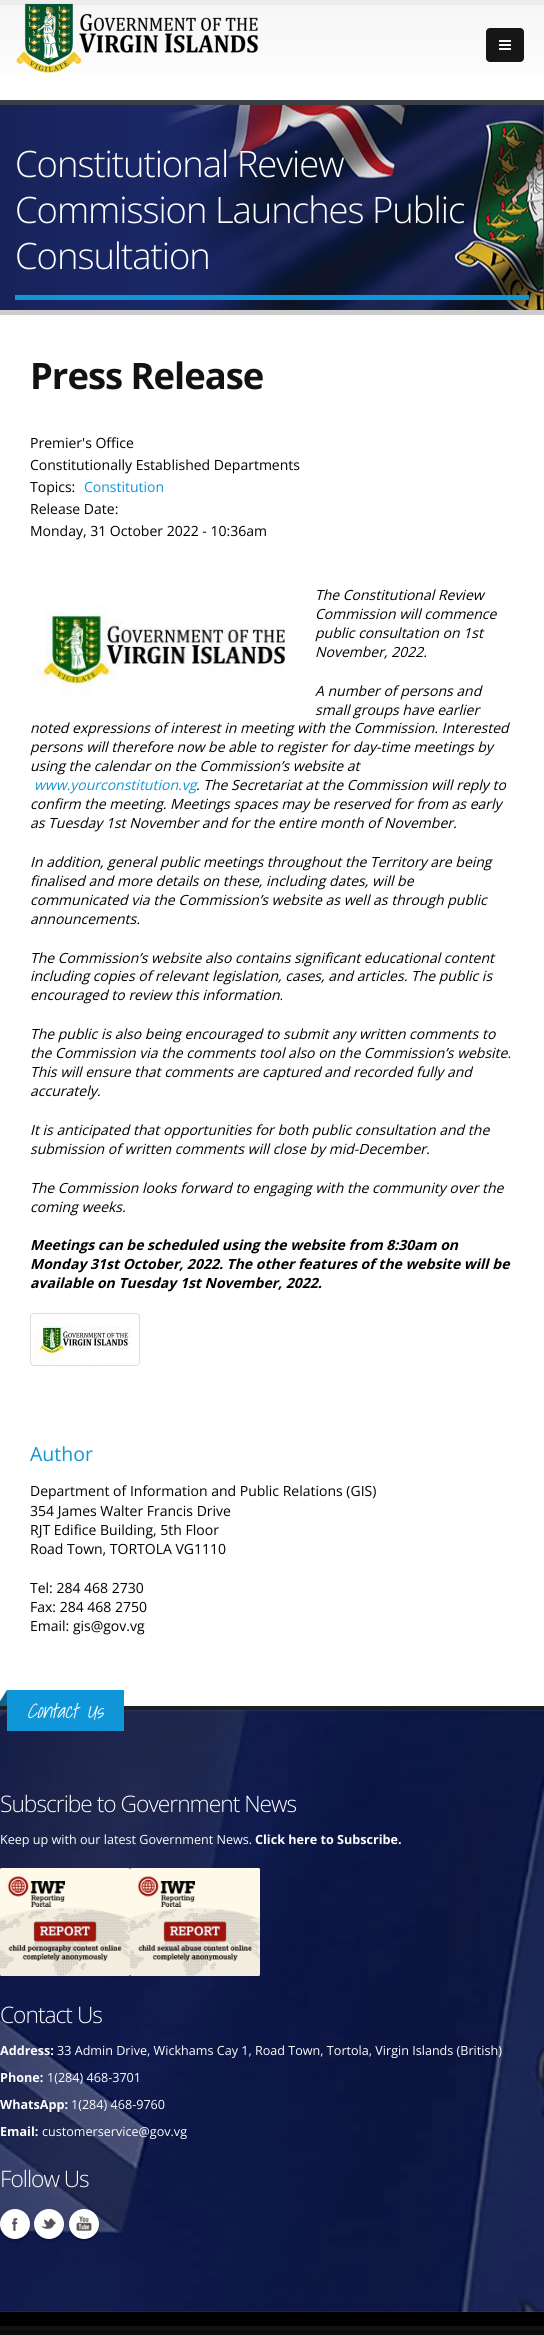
#include <cairo/cairo.h>
#include <math.h>
#include <stddef.h>

static cairo_t *cr;

static void use_color(int r, int g, int b) {
  cairo_set_source_rgb(cr, r / 255.0, g / 255.0, b / 255.0);
}

static void text(double x, double y, const char *s, const char *family, double size, int italic, int bold, int r, int g, int b) {
  cairo_select_font_face(cr, family, italic ? CAIRO_FONT_SLANT_ITALIC : CAIRO_FONT_SLANT_NORMAL,
    bold ? CAIRO_FONT_WEIGHT_BOLD : CAIRO_FONT_WEIGHT_NORMAL);
  cairo_set_font_size(cr, size);
  use_color(r, g, b);
  cairo_move_to(cr, x, y);
  cairo_show_text(cr, s);
}

static void spaced_text(double x, double y, const char *s, double letter, double word) {
  cairo_move_to(cr, x, y);
  while (*s) {
    char ch[5] = {0};
    int n = 0;
    do ch[n++] = *s++; while ((*s & 0xC0) == 0x80);
    cairo_show_text(cr, ch);
    cairo_rel_move_to(cr, letter + word * (*ch == ' '), 0);
  }
}

static void box(double x, double y, double w, double h, int r, int g, int b) {
  use_color(r, g, b);
  cairo_rectangle(cr, x, y, w, h);
  cairo_fill(cr);
}

static void round_rect(double x, double y, double w, double h, double r) {
  cairo_new_sub_path(cr);
  cairo_arc(cr, x + w - r, y + h - r, r, 0, M_PI / 2);
  cairo_arc(cr, x + r, y + h - r, r, M_PI / 2, M_PI);
  cairo_arc(cr, x + r, y + r, r, M_PI, 1.5 * M_PI);
  cairo_arc(cr, x + w - r, y + r, r, 1.5 * M_PI, 2 * M_PI);
  cairo_close_path(cr);
}

static void shadow(double x, double y, double w, double h, double r, double blur, double alpha) {
  cairo_push_group_with_content(cr, CAIRO_CONTENT_ALPHA);
  cairo_set_operator(cr, CAIRO_OPERATOR_SOURCE);
  for (int i = 15; i >= -15 && fmin(w, h) + blur * i / 3 > 0; i -= 2) {
    double e = blur * i / 6;
    cairo_set_source_rgba(cr, 0, 0, 0, alpha * erfc((i - 1) / 8.5) / 2);
    round_rect(x - e, y - e, w + 2 * e, h + 2 * e, fmax(0, fmin(r + e + blur * .6, fmin(w, h) / 2 + e)));
    cairo_fill(cr);
  }
  cairo_pattern_t *soft = cairo_pop_group(cr);
  cairo_mask(cr, soft);
  cairo_pattern_destroy(soft);
}

static void picture(const char *path, double x, double y, double w, double h) {
  cairo_surface_t *image = cairo_image_surface_create_from_png(path);
  cairo_save(cr);
  cairo_set_source_surface(cr, image, x, y);
  cairo_rectangle(cr, x, y, w, h);
  cairo_fill(cr);
  cairo_restore(cr);
  cairo_surface_destroy(image);
}

static void draw(void) {
  cairo_pattern_t *gradient;
  use_color(255, 255, 255);
  cairo_paint(cr);
  gradient = cairo_pattern_create_linear(272, 5, 272, 100);
  cairo_pattern_add_color_stop_rgba(gradient, 0, 0.965, 0.965, 0.965, 1);
  cairo_pattern_add_color_stop_rgba(gradient, 1, 1, 1, 1, 1);
  cairo_set_source(cr, gradient);
  cairo_pattern_destroy(gradient);
  cairo_rectangle(cr, 0, 5, 544, 69);
  cairo_fill(cr);
  box(0, 0, 544, 5, 237, 237, 237);
  picture("img_01.png", 16, 3, 242, 70);
  use_color(23, 23, 23);
  round_rect(486, 28, 38, 34, 4);
  cairo_fill(cr);
  picture("img_02.png", 499, 40, 12, 10);
  picture("img_03.png", 0, 105, 544, 205);
  box(0, 100, 544, 5, 56, 64, 69);
  box(0, 310, 544, 5, 204, 204, 204);
  box(15, 295, 514, 5, 15, 150, 217);
  picture("img_04.png", 30, 605, 255, 90);
  round_rect(30.5, 1313.5, 109, 52, 3.5);
  use_color(221, 221, 221);
  cairo_set_line_width(cr, 1);
  cairo_stroke(cr);
  picture("img_05.png", 35, 1318, 96, 43);
  box(0, 2312, 544, 14, 0, 0, 0);
  picture("img_06.png", 0, 1710, 544, 602);
  box(0, 1706, 544, 4, 31, 31, 31);
  box(7, 1690, 117, 41, 15, 150, 217);
  use_color(10, 101, 145);
  cairo_new_path(cr);
  cairo_move_to(cr, 7, 1690);
  cairo_line_to(cr, 7, 1706);
  cairo_line_to(cr, -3, 1706);
  cairo_close_path(cr);
  cairo_fill(cr);
  picture("img_07.png", 0, 1868, 130, 108);
  picture("img_08.png", 130, 1868, 130, 108);
  use_color(0, 0, 0);
  shadow(0, 2211, 30, 30, 15, 1, 0.3);
  use_color(255, 255, 255);
  cairo_arc(cr, 15, 2224, 15, 0, 2 * M_PI);
  cairo_fill(cr);
  picture("img_09.png", 12, 2218, 6, 13);
  use_color(0, 0, 0);
  shadow(34, 2211, 30, 30, 15, 1, 0.3);
  use_color(255, 255, 255);
  cairo_arc(cr, 49, 2224, 15, 0, 2 * M_PI);
  cairo_fill(cr);
  picture("img_10.png", 41, 2218, 15, 11);
  use_color(0, 0, 0);
  shadow(69, 2211, 30, 30, 15, 1, 0.3);
  use_color(255, 255, 255);
  cairo_arc(cr, 84, 2224, 15, 0, 2 * M_PI);
  cairo_fill(cr);
  picture("img_11.png", 76, 2216, 16, 15);
  box(0, 2330, 544, 5, 12, 12, 12);
  box(0, 2326, 544, 4, 17, 17, 17);
  cairo_select_font_face(cr, "Open Sans Light", CAIRO_FONT_SLANT_NORMAL, CAIRO_FONT_WEIGHT_NORMAL);
  cairo_set_font_size(cr, 36.4);
  use_color(255, 255, 255);
  spaced_text(15, 177, "Constitutional Review", -1, 0);
  spaced_text(15, 223, "Commission Launches Public", -1, 0);
  spaced_text(15, 269, "Consultation", -1, 0);
  cairo_select_font_face(cr, "Open Sans", CAIRO_FONT_SLANT_NORMAL, CAIRO_FONT_WEIGHT_BOLD);
  use_color(18, 18, 20);
  spaced_text(30, 389, "Press Release", -1, 0);
  text(30, 448, "Premier's Office", "Open Sans", 14, 0, 0, 0, 0, 0);
  text(30, 470, "Constitutionally Established Departments", "Open Sans", 14, 0, 0, 0, 0, 0);
  text(30, 492, "Topics:", "Open Sans", 14, 0, 0, 0, 0, 0);
  text(84, 492, "Constitution", "Open Sans", 14, 0, 0, 15, 150, 217);
  text(30, 514, "Release Date:", "Open Sans", 14, 0, 0, 0, 0, 0);
  text(30, 536, "Monday, 31 October 2022 - 10:36am", "Open Sans", 14, 0, 0, 0, 0, 0);
  text(315, 600, "The Constitutional Review", "Open Sans", 14, 1, 0, 0, 0, 0);
  text(315, 619, "Commission will commence", "Open Sans", 14, 1, 0, 0, 0, 0);
  text(315, 638, "public consultation on 1st", "Open Sans", 14, 1, 0, 0, 0, 0);
  text(315, 657, "November, 2022.", "Open Sans", 14, 1, 0, 0, 0, 0);
  text(315, 696, "A number of persons and", "Open Sans", 14, 1, 0, 0, 0, 0);
  text(315, 715, "small groups have earlier", "Open Sans", 14, 1, 0, 0, 0, 0);
  text(30, 733, "noted expressions of interest in meeting with the Commission. Interested", "Open Sans", 14, 1, 0, 0, 0, 0);
  text(30, 752, "persons will therefore now be able to register for day-time meetings by", "Open Sans", 14, 1, 0, 0, 0, 0);
  text(30, 771, "using the calendar on the Commission’s website at", "Open Sans", 14, 1, 0, 0, 0, 0);
  text(34, 790, "www.yourconstitution.vg", "Open Sans", 14, 1, 0, 15, 150, 217);
  text(196, 790, ". The Secretariat at the Commission will reply to", "Open Sans", 14, 1, 0, 0, 0, 0);
  text(30, 809, "confirm the meeting. Meetings spaces may be reserved for from as early", "Open Sans", 14, 1, 0, 0, 0, 0);
  text(30, 828, "as Tuesday 1st November and for the entire month of November.", "Open Sans", 14, 1, 0, 0, 0, 0);
  text(30, 867, "In addition, general public meetings throughout the Territory are being", "Open Sans", 14, 1, 0, 0, 0, 0);
  text(30, 886, "finalised and more details on these, including dates, will be", "Open Sans", 14, 1, 0, 0, 0, 0);
  text(30, 905, "communicated via the Commission’s website as well as through public", "Open Sans", 14, 1, 0, 0, 0, 0);
  text(30, 924, "announcements.", "Open Sans", 14, 1, 0, 0, 0, 0);
  text(30, 963, "The Commission’s website also contains significant educational content", "Open Sans", 14, 1, 0, 0, 0, 0);
  text(30, 981, "including copies of relevant legislation, cases, and articles. The public is", "Open Sans", 14, 1, 0, 0, 0, 0);
  text(30, 1000, "encouraged to review this information.", "Open Sans", 14, 1, 0, 0, 0, 0);
  text(30, 1039, "The public is also being encouraged to submit any written comments to", "Open Sans", 14, 1, 0, 0, 0, 0);
  text(30, 1058, "the Commission via the comments tool also on the Commission’s website.", "Open Sans", 14, 1, 0, 0, 0, 0);
  text(30, 1077, "This will ensure that comments are captured and recorded fully and", "Open Sans", 14, 1, 0, 0, 0, 0);
  text(30, 1096, "accurately.", "Open Sans", 14, 1, 0, 0, 0, 0);
  text(30, 1135, "It is anticipated that opportunities for both public consultation and the", "Open Sans", 14, 1, 0, 0, 0, 0);
  text(30, 1154, "submission of written comments will close by mid-December.", "Open Sans", 14, 1, 0, 0, 0, 0);
  text(30, 1193, "The Commission looks forward to engaging with the community over the", "Open Sans", 14, 1, 0, 0, 0, 0);
  text(30, 1212, "coming weeks.", "Open Sans", 14, 1, 0, 0, 0, 0);
  text(30, 1250, "Meetings can be scheduled using the website from 8:30am on", "Open Sans", 14, 1, 1, 0, 0, 0);
  text(30, 1269, "Monday 31st October, 2022. The other features of the website will be", "Open Sans", 14, 1, 1, 0, 0, 0);
  text(30, 1288, "available on Tuesday 1st November, 2022.", "Open Sans", 14, 1, 1, 0, 0, 0);
  text(30, 1461, "Author", "Open Sans", 19.5, 0, 0, 15, 150, 217);
  text(30, 1496, "Department of Information and Public Relations (GIS)", "Open Sans", 14, 0, 0, 0, 0, 0);
  text(30, 1516, "354 James Walter Francis Drive", "Open Sans", 14, 0, 0, 0, 0, 0);
  text(30, 1535, "RJT Edifice Building, 5th Floor", "Open Sans", 14, 0, 0, 0, 0, 0);
  text(30, 1554, "Road Town, TORTOLA VG1110", "Open Sans", 14, 0, 0, 0, 0, 0);
  text(30, 1593, "Tel: 284 468 2730", "Open Sans", 14, 0, 0, 0, 0, 0);
  text(30, 1612, "Fax: 284 468 2750", "Open Sans", 14, 0, 0, 0, 0, 0);
  text(30, 1631, "Email: gis@gov.vg", "Open Sans", 14, 0, 0, 0, 0, 0);
  text(27, 1718, "Contact Us", "Shadows Into Light Light", 20, 1, 0, 255, 255, 255);
  cairo_select_font_face(cr, "Open Sans Light", CAIRO_FONT_SLANT_NORMAL, CAIRO_FONT_WEIGHT_NORMAL);
  cairo_set_font_size(cr, 22.75);
  spaced_text(0, 1812, "Subscribe to Government News", -1, 0);
  text(0, 1844, "Keep up with our latest Government News.", "Open Sans", 12.6, 0, 0, 255, 255, 255);
  text(255, 1844, "Click here to Subscribe.", "Open Sans", 12.6, 0, 1, 255, 255, 255);
  cairo_select_font_face(cr, "Open Sans Light", CAIRO_FONT_SLANT_NORMAL, CAIRO_FONT_WEIGHT_NORMAL);
  cairo_set_font_size(cr, 22.75);
  spaced_text(0, 2023, "Contact Us", -1, 0);
  text(0, 2055, "Address:", "Open Sans", 12.6, 0, 1, 255, 255, 255);
  text(57, 2055, "33 Admin Drive, Wickhams Cay 1, Road Town, Tortola, Virgin Islands (British)", "Open Sans", 12.6, 0, 0, 255, 255, 255);
  text(0, 2082, "Phone:", "Open Sans", 12.6, 0, 1, 255, 255, 255);
  text(47, 2082, "1(284) 468-3701", "Open Sans", 12.6, 0, 0, 255, 255, 255);
  text(0, 2109, "WhatsApp:", "Open Sans", 12.6, 0, 1, 255, 255, 255);
  text(71, 2109, "1(284) 468-9760", "Open Sans", 12.6, 0, 0, 255, 255, 255);
  text(0, 2136, "Email:", "Open Sans", 12.6, 0, 1, 255, 255, 255);
  text(42, 2136, "customerservice@gov.vg", "Open Sans", 12.6, 0, 0, 255, 255, 255);
  cairo_select_font_face(cr, "Open Sans Light", CAIRO_FONT_SLANT_NORMAL, CAIRO_FONT_WEIGHT_NORMAL);
  cairo_set_font_size(cr, 22.75);
  spaced_text(0, 2187, "Follow Us", -1, 0);
}

int main(void) {
  cairo_surface_t *surface = cairo_image_surface_create(CAIRO_FORMAT_RGB24, 544, 2335);
  cr = cairo_create(surface);
  cairo_font_options_t *options = cairo_font_options_create();
  cairo_font_options_set_hint_metrics(options, CAIRO_HINT_METRICS_OFF);
  cairo_font_options_set_hint_style(options, CAIRO_HINT_STYLE_NONE);
  cairo_set_font_options(cr, options);
  cairo_set_miter_limit(cr, 4);
  draw();
  cairo_surface_write_to_png(surface, "out.png");
  cairo_font_options_destroy(options);
  cairo_destroy(cr);
  cairo_surface_destroy(surface);
  return 0;
}
